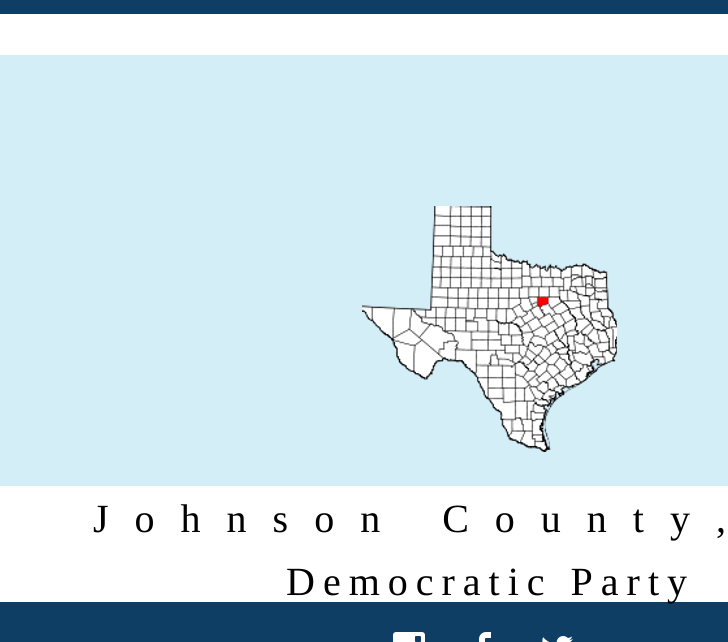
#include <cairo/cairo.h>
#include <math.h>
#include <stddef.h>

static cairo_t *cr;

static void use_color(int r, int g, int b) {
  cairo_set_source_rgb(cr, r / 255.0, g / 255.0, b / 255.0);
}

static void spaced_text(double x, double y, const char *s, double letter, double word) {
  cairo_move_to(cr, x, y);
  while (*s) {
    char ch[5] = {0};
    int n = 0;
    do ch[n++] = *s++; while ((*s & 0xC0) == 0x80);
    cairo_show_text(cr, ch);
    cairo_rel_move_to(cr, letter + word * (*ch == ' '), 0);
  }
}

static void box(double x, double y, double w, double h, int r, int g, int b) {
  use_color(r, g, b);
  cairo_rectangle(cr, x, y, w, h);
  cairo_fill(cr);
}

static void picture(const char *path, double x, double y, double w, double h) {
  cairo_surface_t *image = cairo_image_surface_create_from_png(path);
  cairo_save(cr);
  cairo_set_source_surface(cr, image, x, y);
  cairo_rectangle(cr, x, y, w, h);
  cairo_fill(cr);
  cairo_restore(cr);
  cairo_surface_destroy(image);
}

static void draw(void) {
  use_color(255, 255, 255);
  cairo_paint(cr);
  box(0, 55, 728, 431, 212, 238, 248);
  box(0, 0, 728, 14, 14, 62, 99);
  picture("img_01.png", 362, 206, 255, 246);
  box(0, 602, 728, 40, 14, 62, 99);
  picture("img_02.png", 393, 632, 32, 10);
  picture("img_03.png", 479, 632, 12, 10);
  picture("img_04.png", 542, 636, 31, 6);
  cairo_select_font_face(cr, "Liberation Serif", CAIRO_FONT_SLANT_NORMAL, CAIRO_FONT_WEIGHT_NORMAL);
  cairo_set_font_size(cr, 40);
  use_color(0, 0, 0);
  spaced_text(93, 532, "Johnson County,", 26, 0);
  spaced_text(286, 595, "Democratic Party", 8, 0);
}

int main(void) {
  cairo_surface_t *surface = cairo_image_surface_create(CAIRO_FORMAT_RGB24, 728, 642);
  cr = cairo_create(surface);
  cairo_font_options_t *options = cairo_font_options_create();
  cairo_font_options_set_hint_metrics(options, CAIRO_HINT_METRICS_OFF);
  cairo_font_options_set_hint_style(options, CAIRO_HINT_STYLE_NONE);
  cairo_set_font_options(cr, options);
  cairo_set_miter_limit(cr, 4);
  draw();
  cairo_surface_write_to_png(surface, "out.png");
  cairo_font_options_destroy(options);
  cairo_destroy(cr);
  cairo_surface_destroy(surface);
  return 0;
}
